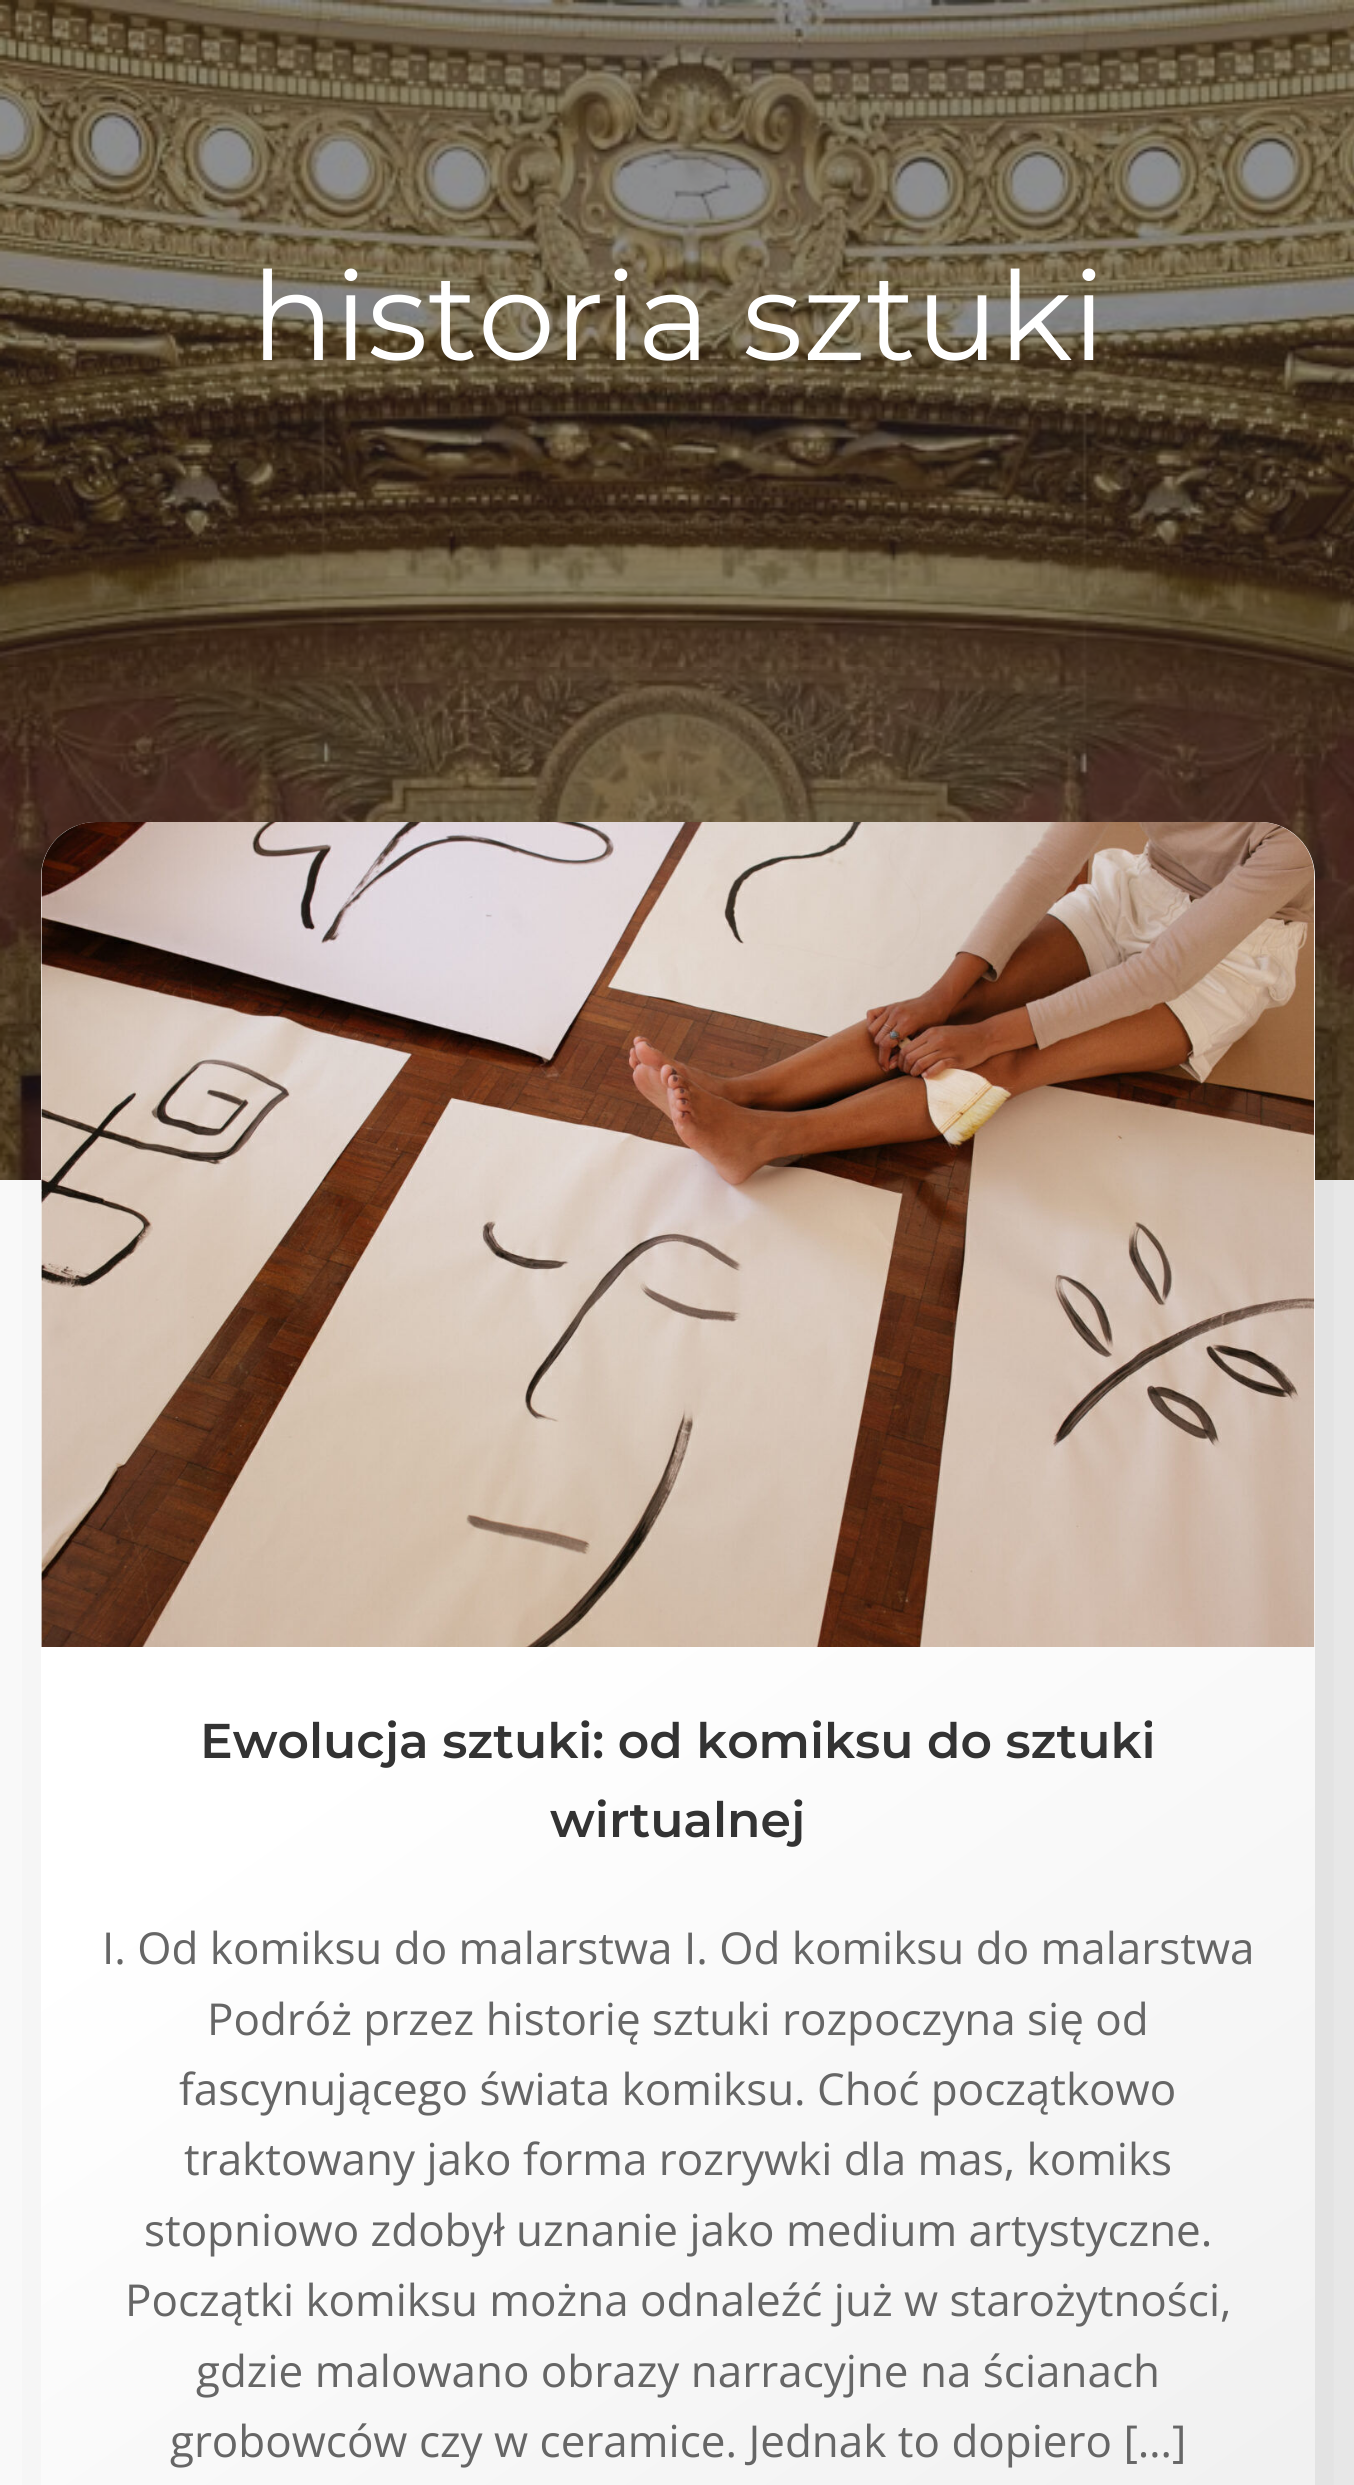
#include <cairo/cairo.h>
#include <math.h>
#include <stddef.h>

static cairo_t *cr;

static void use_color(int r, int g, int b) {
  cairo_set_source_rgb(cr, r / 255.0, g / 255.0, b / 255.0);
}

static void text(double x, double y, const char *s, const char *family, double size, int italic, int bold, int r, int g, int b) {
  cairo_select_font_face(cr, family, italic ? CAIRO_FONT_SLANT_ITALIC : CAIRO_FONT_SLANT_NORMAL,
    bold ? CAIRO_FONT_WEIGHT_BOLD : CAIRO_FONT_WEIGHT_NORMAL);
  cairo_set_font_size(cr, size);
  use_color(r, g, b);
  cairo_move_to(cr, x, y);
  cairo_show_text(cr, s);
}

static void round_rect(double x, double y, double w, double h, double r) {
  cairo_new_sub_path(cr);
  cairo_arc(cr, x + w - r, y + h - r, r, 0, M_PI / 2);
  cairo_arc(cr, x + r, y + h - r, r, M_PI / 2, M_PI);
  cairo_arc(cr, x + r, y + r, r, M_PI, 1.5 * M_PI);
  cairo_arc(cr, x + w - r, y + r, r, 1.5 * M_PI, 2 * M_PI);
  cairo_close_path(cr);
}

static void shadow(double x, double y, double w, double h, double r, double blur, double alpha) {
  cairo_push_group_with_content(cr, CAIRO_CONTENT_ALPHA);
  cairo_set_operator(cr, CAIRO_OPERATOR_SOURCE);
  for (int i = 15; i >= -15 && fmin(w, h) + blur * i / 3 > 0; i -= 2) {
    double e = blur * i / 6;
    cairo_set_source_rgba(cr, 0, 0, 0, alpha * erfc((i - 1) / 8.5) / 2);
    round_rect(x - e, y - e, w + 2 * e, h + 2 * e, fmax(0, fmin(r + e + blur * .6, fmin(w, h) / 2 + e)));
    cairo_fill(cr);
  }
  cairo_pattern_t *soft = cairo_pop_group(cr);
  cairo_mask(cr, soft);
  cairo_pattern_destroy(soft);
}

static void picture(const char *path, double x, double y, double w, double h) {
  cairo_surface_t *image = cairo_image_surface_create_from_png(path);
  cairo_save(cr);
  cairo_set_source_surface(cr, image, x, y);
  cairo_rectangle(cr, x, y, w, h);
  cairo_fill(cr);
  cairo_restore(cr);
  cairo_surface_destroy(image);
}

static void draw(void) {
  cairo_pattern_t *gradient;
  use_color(255, 255, 255);
  cairo_paint(cr);
  picture("img_01.png", 0, 0, 1354, 1180);
  use_color(0, 0, 0);
  shadow(91, 872, 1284, 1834, 61, 82.5, 0.15);
  gradient = cairo_pattern_create_linear(40, 823, 1316, 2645);
  cairo_pattern_add_color_stop_rgba(gradient, 0.42, 1, 1, 1, 1);
  cairo_pattern_add_color_stop_rgba(gradient, 1, 0.937, 0.937, 0.937, 1);
  cairo_set_source(cr, gradient);
  cairo_pattern_destroy(gradient);
  round_rect(41, 822, 1274, 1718, 55);
  cairo_fill(cr);
  picture("img_02.png", 41, 822, 1274, 825);
  text(251, 360, "historia sztuki", "Montserrat", 123.25, 0, 0, 255, 255, 255);
  text(200, 1758, "Ewolucja sztuki: od komiksu do sztuki", "Montserrat SemiBold", 48.8, 0, 0, 51, 51, 51);
  text(550, 1837, "wirtualnej", "Montserrat SemiBold", 48.8, 0, 0, 51, 51, 51);
  text(102, 1964, "I. Od komiksu do malarstwa I. Od komiksu do malarstwa", "Open Sans", 44, 0, 0, 102, 102, 102);
  text(207, 2035, "Podróż przez historię sztuki rozpoczyna się od", "Open Sans", 44, 0, 0, 102, 102, 102);
  text(179, 2105, "fascynującego świata komiksu. Choć początkowo", "Open Sans", 44, 0, 0, 102, 102, 102);
  text(184, 2175, "traktowany jako forma rozrywki dla mas, komiks", "Open Sans", 44, 0, 0, 102, 102, 102);
  text(144, 2246, "stopniowo zdobył uznanie jako medium artystyczne.", "Open Sans", 44, 0, 0, 102, 102, 102);
  text(125, 2316, "Początki komiksu można odnaleźć już w starożytności,", "Open Sans", 44, 0, 0, 102, 102, 102);
  text(196, 2387, "gdzie malowano obrazy narracyjne na ścianach", "Open Sans", 44, 0, 0, 102, 102, 102);
  text(170, 2457, "grobowców czy w ceramice. Jednak to dopiero […]", "Open Sans", 44, 0, 0, 102, 102, 102);
}

int main(void) {
  cairo_surface_t *surface = cairo_image_surface_create(CAIRO_FORMAT_RGB24, 1354, 2485);
  cr = cairo_create(surface);
  cairo_font_options_t *options = cairo_font_options_create();
  cairo_font_options_set_hint_metrics(options, CAIRO_HINT_METRICS_OFF);
  cairo_font_options_set_hint_style(options, CAIRO_HINT_STYLE_NONE);
  cairo_set_font_options(cr, options);
  cairo_set_miter_limit(cr, 4);
  draw();
  cairo_surface_write_to_png(surface, "out.png");
  cairo_font_options_destroy(options);
  cairo_destroy(cr);
  cairo_surface_destroy(surface);
  return 0;
}
